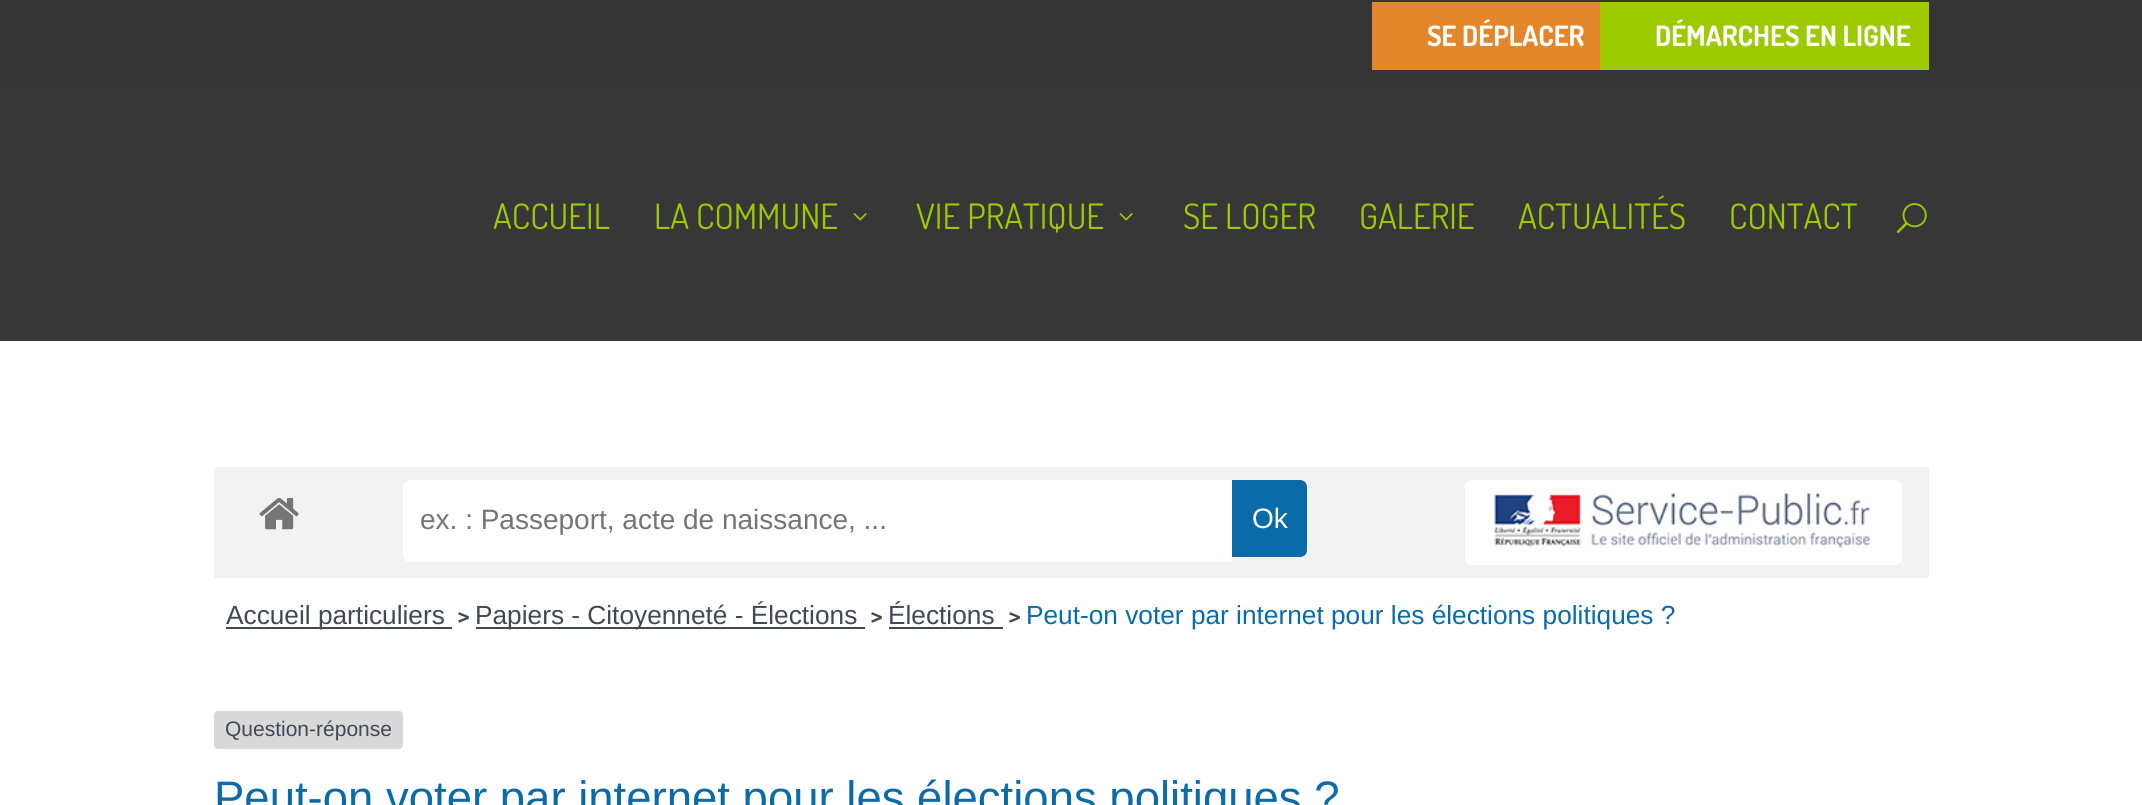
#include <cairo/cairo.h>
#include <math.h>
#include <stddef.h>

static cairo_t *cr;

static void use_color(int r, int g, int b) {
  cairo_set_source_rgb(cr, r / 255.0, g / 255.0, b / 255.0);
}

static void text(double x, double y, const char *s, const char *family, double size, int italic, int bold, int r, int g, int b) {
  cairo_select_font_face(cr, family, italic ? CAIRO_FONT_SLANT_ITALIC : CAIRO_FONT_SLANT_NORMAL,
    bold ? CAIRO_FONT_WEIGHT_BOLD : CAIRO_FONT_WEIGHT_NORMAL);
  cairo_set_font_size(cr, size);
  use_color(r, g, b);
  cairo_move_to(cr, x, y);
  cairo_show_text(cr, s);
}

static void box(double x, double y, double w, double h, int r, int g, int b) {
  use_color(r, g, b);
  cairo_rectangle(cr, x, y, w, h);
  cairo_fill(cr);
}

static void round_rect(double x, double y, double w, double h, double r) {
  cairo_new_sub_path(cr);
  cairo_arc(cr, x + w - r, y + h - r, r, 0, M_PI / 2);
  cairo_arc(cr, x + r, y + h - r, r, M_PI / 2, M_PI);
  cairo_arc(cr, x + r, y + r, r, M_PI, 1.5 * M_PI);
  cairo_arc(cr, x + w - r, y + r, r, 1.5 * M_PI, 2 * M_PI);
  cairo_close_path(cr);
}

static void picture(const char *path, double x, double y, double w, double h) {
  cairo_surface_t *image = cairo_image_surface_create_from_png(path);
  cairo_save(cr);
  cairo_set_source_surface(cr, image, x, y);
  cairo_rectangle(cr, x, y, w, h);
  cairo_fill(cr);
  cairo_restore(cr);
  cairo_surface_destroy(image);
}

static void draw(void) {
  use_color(255, 255, 255);
  cairo_paint(cr);
  box(0, 0, 2142, 89, 53, 53, 53);
  box(1372, 2, 228, 68, 226, 135, 43);
  box(1600, 2, 329, 68, 156, 201, 0);
  box(0, 89, 2142, 252, 55, 55, 55);
  picture("img_01.png", 853, 213, 14, 8);
  picture("img_01.png", 1119, 213, 14, 8);
  picture("img_02.png", 1896, 203, 31, 30);
  box(214, 467, 1715, 111, 242, 242, 242);
  picture("img_03.png", 259, 498, 40, 32);
  use_color(255, 255, 255);
  cairo_new_path(cr);
  cairo_move_to(cr, 410, 480);
  cairo_line_to(cr, 1232, 480);
  cairo_line_to(cr, 1232, 562);
  cairo_line_to(cr, 410, 562);
  cairo_curve_to(cr, 406, 562, 403, 559, 403, 555);
  cairo_line_to(cr, 403, 487);
  cairo_curve_to(cr, 403, 483, 406, 480, 410, 480);
  cairo_close_path(cr);
  cairo_fill(cr);
  use_color(11, 107, 168);
  cairo_new_path(cr);
  cairo_move_to(cr, 1232, 480);
  cairo_line_to(cr, 1300, 480);
  cairo_curve_to(cr, 1304, 480, 1307, 483, 1307, 487);
  cairo_line_to(cr, 1307, 550);
  cairo_curve_to(cr, 1307, 554, 1304, 557, 1300, 557);
  cairo_line_to(cr, 1232, 557);
  cairo_close_path(cr);
  cairo_fill(cr);
  use_color(255, 255, 255);
  round_rect(1465, 480, 437, 85, 7);
  cairo_fill(cr);
  picture("img_04.png", 1494, 490, 378, 61);
  box(226, 627, 226, 2, 65, 72, 86);
  box(476, 627, 389, 2, 65, 72, 86);
  box(889, 627, 114, 2, 65, 72, 86);
  use_color(217, 217, 217);
  round_rect(214, 711, 189, 38, 4);
  cairo_fill(cr);
  text(1427, 46, "SE DÉPLACER", "Dosis", 28, 0, 1, 255, 255, 255);
  text(1655, 46, "DÉMARCHES EN LIGNE", "Dosis", 28, 0, 1, 255, 255, 255);
  text(493, 229, "ACCUEIL", "Dosis", 35, 0, 0, 156, 201, 0);
  text(654, 229, "LA COMMUNE", "Dosis", 35, 0, 0, 156, 201, 0);
  text(916, 229, "VIE PRATIQUE", "Dosis", 35, 0, 0, 156, 201, 0);
  text(1183, 229, "SE LOGER", "Dosis", 35, 0, 0, 156, 201, 0);
  text(1359, 229, "GALERIE", "Dosis", 35, 0, 0, 156, 201, 0);
  text(1518, 229, "ACTUALITÉS", "Dosis", 35, 0, 0, 156, 201, 0);
  text(1729, 229, "CONTACT", "Dosis", 35, 0, 0, 156, 201, 0);
  text(420, 529, "ex. : Passeport, acte de naissance, ...", "Liberation Sans", 28, 0, 0, 117, 117, 117);
  text(1252, 528, "Ok", "Liberation Sans", 28, 0, 0, 255, 255, 255);
  text(226, 624, "Accueil particuliers", "Liberation Sans", 26.25, 0, 0, 65, 72, 86);
  text(457, 624, ">", "Ubuntu Medium", 23, 0, 0, 65, 72, 86);
  text(475, 624, "Papiers - Citoyenneté - Élections", "Liberation Sans", 26.25, 0, 0, 65, 72, 86);
  text(870, 624, ">", "Ubuntu Medium", 23, 0, 0, 65, 72, 86);
  text(888, 624, "Élections", "Liberation Sans", 26.25, 0, 0, 65, 72, 86);
  text(1008, 624, ">", "Ubuntu Medium", 23, 0, 0, 65, 72, 86);
  text(1026, 624, "Peut-on voter par internet pour les élections politiques ?", "Liberation Sans", 26.25, 0, 0, 11, 107, 168);
  text(225, 736, "Question-réponse", "Liberation Sans", 21, 0, 0, 65, 72, 86);
  text(214, 813, "Peut-on voter par internet pour les élections politiques ?", "Liberation Sans", 45.5, 0, 0, 11, 107, 168);
}

int main(void) {
  cairo_surface_t *surface = cairo_image_surface_create(CAIRO_FORMAT_RGB24, 2142, 805);
  cr = cairo_create(surface);
  cairo_font_options_t *options = cairo_font_options_create();
  cairo_font_options_set_hint_metrics(options, CAIRO_HINT_METRICS_OFF);
  cairo_font_options_set_hint_style(options, CAIRO_HINT_STYLE_NONE);
  cairo_set_font_options(cr, options);
  cairo_set_miter_limit(cr, 4);
  draw();
  cairo_surface_write_to_png(surface, "out.png");
  cairo_font_options_destroy(options);
  cairo_destroy(cr);
  cairo_surface_destroy(surface);
  return 0;
}
